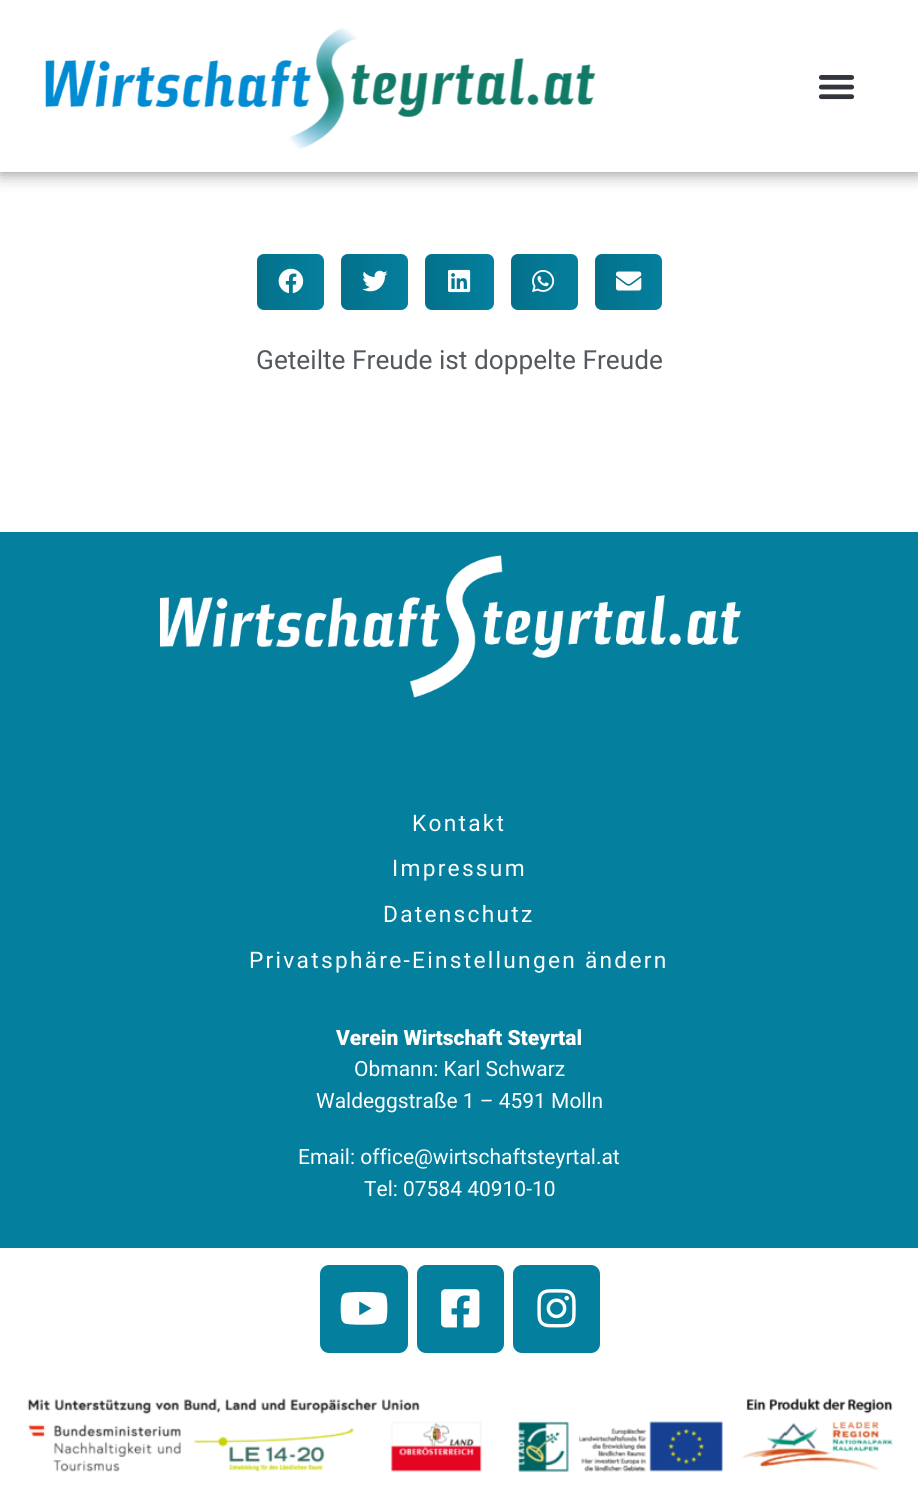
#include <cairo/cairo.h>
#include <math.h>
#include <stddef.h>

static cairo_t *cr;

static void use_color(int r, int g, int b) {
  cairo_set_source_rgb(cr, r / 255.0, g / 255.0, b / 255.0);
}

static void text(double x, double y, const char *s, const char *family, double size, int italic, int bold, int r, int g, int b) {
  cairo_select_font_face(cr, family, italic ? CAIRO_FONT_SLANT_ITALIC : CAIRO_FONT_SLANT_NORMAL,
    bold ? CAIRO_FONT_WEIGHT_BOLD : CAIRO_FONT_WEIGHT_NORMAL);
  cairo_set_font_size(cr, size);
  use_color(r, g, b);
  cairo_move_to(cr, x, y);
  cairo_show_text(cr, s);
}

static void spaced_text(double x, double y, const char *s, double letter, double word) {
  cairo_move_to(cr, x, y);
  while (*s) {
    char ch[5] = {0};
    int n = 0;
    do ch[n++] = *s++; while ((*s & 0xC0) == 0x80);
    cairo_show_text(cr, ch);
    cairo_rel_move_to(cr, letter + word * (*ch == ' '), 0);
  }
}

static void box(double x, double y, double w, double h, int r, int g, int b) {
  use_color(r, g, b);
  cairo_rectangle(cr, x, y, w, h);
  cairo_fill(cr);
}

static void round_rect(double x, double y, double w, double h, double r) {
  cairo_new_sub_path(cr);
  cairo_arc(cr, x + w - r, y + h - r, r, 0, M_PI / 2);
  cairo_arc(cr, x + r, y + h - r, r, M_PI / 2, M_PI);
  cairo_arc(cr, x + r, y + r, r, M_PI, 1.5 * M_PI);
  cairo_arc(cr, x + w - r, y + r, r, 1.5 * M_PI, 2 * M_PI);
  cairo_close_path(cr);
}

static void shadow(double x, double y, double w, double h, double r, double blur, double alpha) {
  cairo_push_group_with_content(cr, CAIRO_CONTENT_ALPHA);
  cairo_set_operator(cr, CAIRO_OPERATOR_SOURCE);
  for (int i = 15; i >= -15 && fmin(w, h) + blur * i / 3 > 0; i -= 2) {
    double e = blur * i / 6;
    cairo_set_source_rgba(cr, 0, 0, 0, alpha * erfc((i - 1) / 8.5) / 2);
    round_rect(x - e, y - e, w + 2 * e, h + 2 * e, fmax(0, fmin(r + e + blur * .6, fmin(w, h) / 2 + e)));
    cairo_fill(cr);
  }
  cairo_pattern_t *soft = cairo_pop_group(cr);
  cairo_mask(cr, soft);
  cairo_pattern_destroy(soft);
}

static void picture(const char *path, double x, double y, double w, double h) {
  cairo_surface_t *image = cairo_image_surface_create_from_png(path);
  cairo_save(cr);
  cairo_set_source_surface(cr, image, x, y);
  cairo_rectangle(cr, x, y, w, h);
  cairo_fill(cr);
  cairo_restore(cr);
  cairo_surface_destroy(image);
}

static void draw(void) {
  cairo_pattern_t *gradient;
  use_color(255, 255, 255);
  cairo_paint(cr);
  use_color(0, 0, 0);
  shadow(0, 0, 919, 172, 0, 9, 0.5);
  box(0, 0, 918, 172, 255, 255, 255);
  picture("img_01.png", 45, 28, 551, 121);
  picture("img_02.png", 818, 75, 37, 25);
  use_color(4, 128, 158);
  round_rect(257, 254, 67, 56, 7);
  cairo_fill(cr);
  gradient = cairo_pattern_create_linear(257, 282, 324, 282);
  cairo_pattern_add_color_stop_rgba(gradient, 0, 0, 0, 0, 0.12);
  cairo_pattern_add_color_stop_rgba(gradient, 1, 0, 0, 0, 0);
  cairo_set_source(cr, gradient);
  cairo_pattern_destroy(gradient);
  round_rect(257, 254, 67, 56, 7);
  cairo_fill(cr);
  picture("img_03.png", 278, 268, 26, 26);
  use_color(4, 128, 158);
  round_rect(341, 254, 67, 56, 7);
  cairo_fill(cr);
  gradient = cairo_pattern_create_linear(341, 282, 408, 282);
  cairo_pattern_add_color_stop_rgba(gradient, 0, 0, 0, 0, 0.12);
  cairo_pattern_add_color_stop_rgba(gradient, 1, 0, 0, 0, 0);
  cairo_set_source(cr, gradient);
  cairo_pattern_destroy(gradient);
  round_rect(341, 254, 67, 56, 7);
  cairo_fill(cr);
  picture("img_04.png", 362, 270, 26, 22);
  use_color(4, 128, 158);
  round_rect(425, 254, 69, 56, 7);
  cairo_fill(cr);
  gradient = cairo_pattern_create_linear(425, 282, 494, 282);
  cairo_pattern_add_color_stop_rgba(gradient, 0, 0, 0, 0, 0.12);
  cairo_pattern_add_color_stop_rgba(gradient, 1, 0, 0, 0, 0);
  cairo_set_source(cr, gradient);
  cairo_pattern_destroy(gradient);
  round_rect(425, 254, 69, 56, 7);
  cairo_fill(cr);
  picture("img_05.png", 448, 269, 23, 24);
  use_color(4, 128, 158);
  round_rect(511, 254, 67, 56, 7);
  cairo_fill(cr);
  gradient = cairo_pattern_create_linear(511, 282, 578, 282);
  cairo_pattern_add_color_stop_rgba(gradient, 0, 0, 0, 0, 0.12);
  cairo_pattern_add_color_stop_rgba(gradient, 1, 0, 0, 0, 0);
  cairo_set_source(cr, gradient);
  cairo_pattern_destroy(gradient);
  round_rect(511, 254, 67, 56, 7);
  cairo_fill(cr);
  picture("img_06.png", 532, 270, 23, 22);
  use_color(4, 128, 158);
  round_rect(595, 254, 67, 56, 7);
  cairo_fill(cr);
  gradient = cairo_pattern_create_linear(595, 282, 662, 282);
  cairo_pattern_add_color_stop_rgba(gradient, 0, 0, 0, 0, 0.12);
  cairo_pattern_add_color_stop_rgba(gradient, 1, 0, 0, 0, 0);
  cairo_set_source(cr, gradient);
  cairo_pattern_destroy(gradient);
  round_rect(595, 254, 67, 56, 7);
  cairo_fill(cr);
  picture("img_07.png", 616, 271, 26, 20);
  box(0, 532, 918, 716, 4, 128, 158);
  picture("img_08.png", 160, 555, 581, 143);
  round_rect(320, 1265, 88, 88, 9);
  cairo_fill(cr);
  picture("img_09.png", 340, 1291, 48, 34);
  round_rect(417, 1265, 87, 88, 9);
  cairo_fill(cr);
  picture("img_10.png", 441, 1289, 39, 39);
  round_rect(513, 1265, 87, 88, 9);
  cairo_fill(cr);
  picture("img_11.png", 537, 1289, 39, 39);
  picture("img_12.png", 27, 1398, 866, 74);
  text(256, 369, "Geteilte Freude ist doppelte Freude", "Roboto", 26.25, 0, 0, 84, 89, 95);
  cairo_set_font_size(cr, 22.75);
  use_color(255, 255, 255);
  spaced_text(412, 831, "Kontakt", 2.25, 0);
  spaced_text(392, 876, "Impressum", 2.25, 0);
  spaced_text(383, 922, "Datenschutz", 2.25, 0);
  spaced_text(249, 968, "Privatsphäre-Einstellungen ändern", 2.25, 0);
  text(336, 1045, "Verein Wirtschaft Steyrtal", "Roboto Black", 21, 0, 0, 255, 255, 255);
  text(354, 1076, "Obmann: Karl Schwarz", "Roboto", 21, 0, 0, 255, 255, 255);
  text(316, 1108, "Waldeggstraße 1 – 4591 Molln", "Roboto", 21, 0, 0, 255, 255, 255);
  text(298, 1164, "Email: office@wirtschaftsteyrtal.at", "Roboto", 21, 0, 0, 255, 255, 255);
  text(364, 1196, "Tel: 07584 40910-10", "Roboto", 21, 0, 0, 255, 255, 255);
}

int main(void) {
  cairo_surface_t *surface = cairo_image_surface_create(CAIRO_FORMAT_RGB24, 918, 1486);
  cr = cairo_create(surface);
  cairo_font_options_t *options = cairo_font_options_create();
  cairo_font_options_set_hint_metrics(options, CAIRO_HINT_METRICS_OFF);
  cairo_font_options_set_hint_style(options, CAIRO_HINT_STYLE_NONE);
  cairo_set_font_options(cr, options);
  cairo_set_miter_limit(cr, 4);
  draw();
  cairo_surface_write_to_png(surface, "out.png");
  cairo_font_options_destroy(options);
  cairo_destroy(cr);
  cairo_surface_destroy(surface);
  return 0;
}
